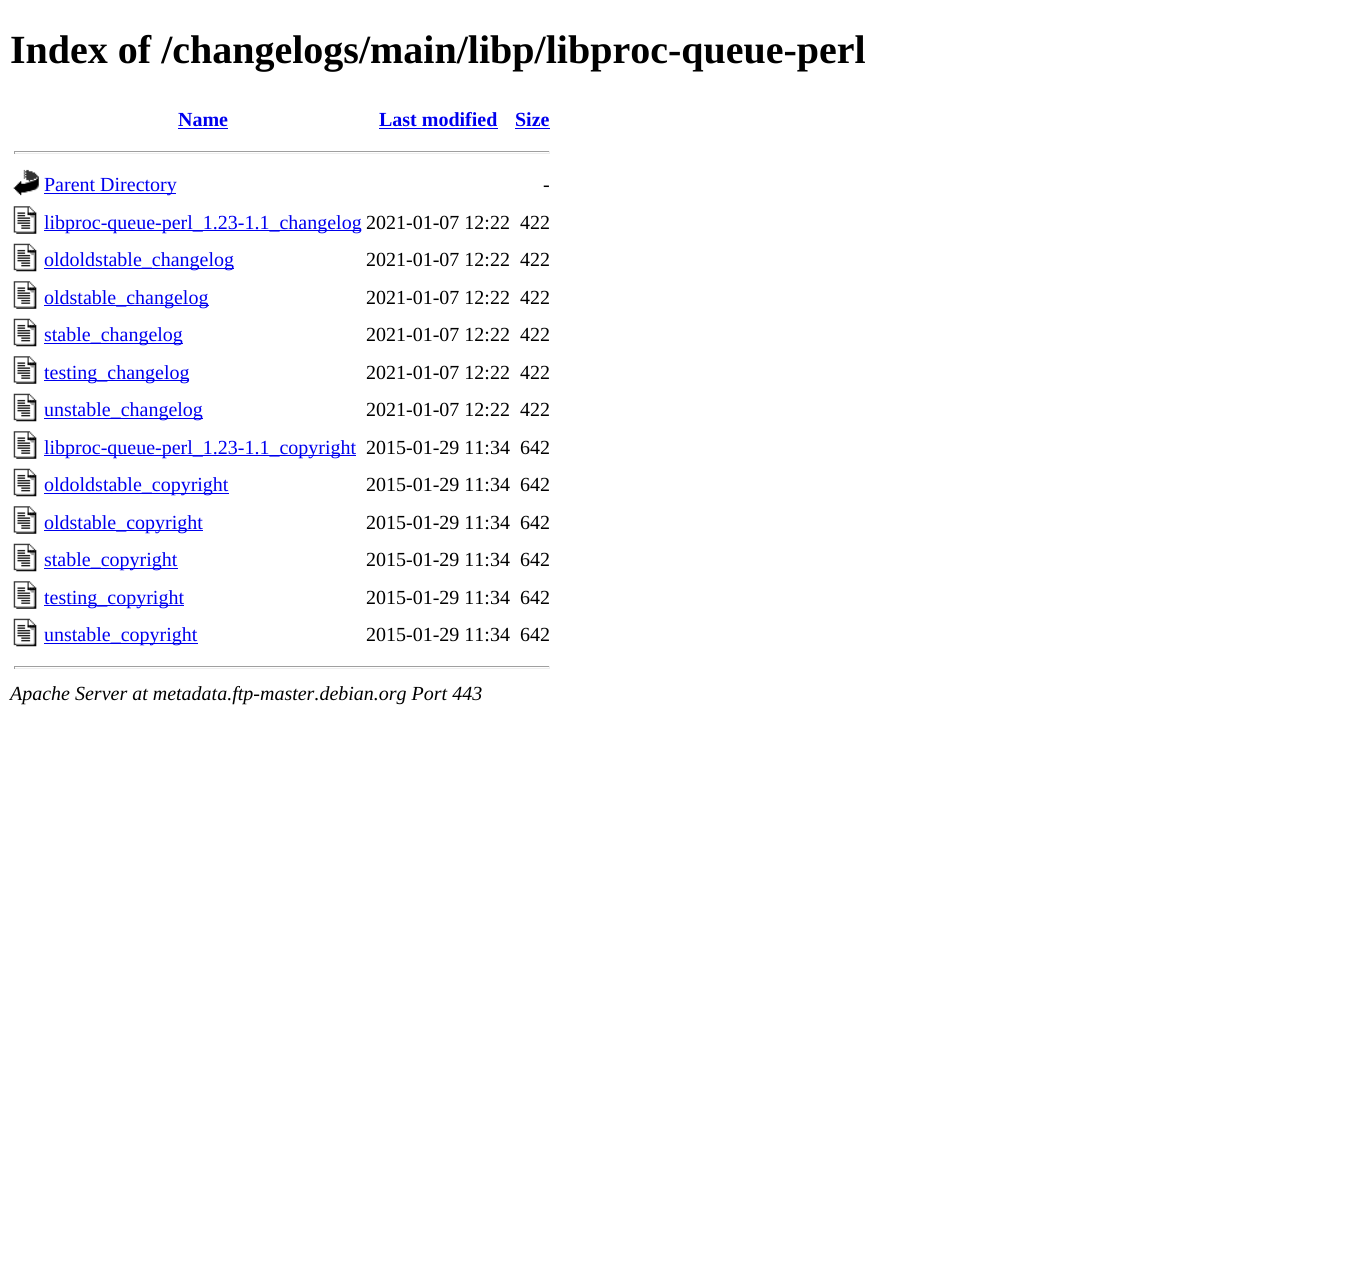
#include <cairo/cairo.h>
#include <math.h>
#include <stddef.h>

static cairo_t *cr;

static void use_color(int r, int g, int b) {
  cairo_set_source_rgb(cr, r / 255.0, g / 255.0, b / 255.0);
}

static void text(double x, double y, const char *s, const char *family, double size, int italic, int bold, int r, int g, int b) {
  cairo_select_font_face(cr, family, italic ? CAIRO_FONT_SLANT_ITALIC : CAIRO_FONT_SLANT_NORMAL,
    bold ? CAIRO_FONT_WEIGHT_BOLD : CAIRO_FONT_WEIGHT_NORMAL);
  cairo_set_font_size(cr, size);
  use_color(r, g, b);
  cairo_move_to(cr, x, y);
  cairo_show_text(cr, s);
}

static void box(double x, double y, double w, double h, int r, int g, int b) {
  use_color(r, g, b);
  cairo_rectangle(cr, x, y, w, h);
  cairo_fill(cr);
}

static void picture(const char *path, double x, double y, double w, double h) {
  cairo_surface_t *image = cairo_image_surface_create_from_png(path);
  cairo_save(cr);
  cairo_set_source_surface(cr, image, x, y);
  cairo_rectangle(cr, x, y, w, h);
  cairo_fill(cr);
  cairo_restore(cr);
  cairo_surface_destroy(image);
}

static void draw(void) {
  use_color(255, 255, 255);
  cairo_paint(cr);
  box(178, 128, 50, 1, 0, 0, 238);
  box(379, 128, 119, 1, 0, 0, 238);
  box(515, 128, 35, 1, 0, 0, 238);
  box(14, 151, 536, 1, 159, 159, 159);
  box(549, 151, 1, 3, 238, 238, 238);
  box(14, 153, 536, 1, 238, 238, 238);
  box(14, 151, 1, 3, 159, 159, 159);
  picture("img_01.png", 13, 169, 26, 27);
  box(44, 193, 132, 1, 0, 0, 238);
  picture("img_02.png", 13, 206, 24, 28);
  box(44, 230, 317, 1, 0, 0, 238);
  picture("img_03.png", 13, 243, 24, 29);
  box(44, 268, 190, 1, 0, 0, 238);
  picture("img_04.png", 13, 281, 24, 28);
  box(44, 305, 165, 1, 0, 0, 238);
  picture("img_03.png", 13, 318, 24, 29);
  box(44, 343, 139, 1, 0, 0, 238);
  picture("img_02.png", 13, 356, 24, 28);
  box(44, 380, 145, 1, 0, 0, 238);
  picture("img_03.png", 13, 393, 24, 29);
  box(44, 418, 159, 1, 0, 0, 238);
  picture("img_02.png", 13, 431, 24, 28);
  box(44, 455, 312, 1, 0, 0, 238);
  picture("img_03.png", 13, 468, 24, 29);
  box(44, 493, 185, 1, 0, 0, 238);
  picture("img_02.png", 13, 506, 24, 28);
  box(44, 530, 159, 1, 0, 0, 238);
  picture("img_03.png", 13, 543, 24, 29);
  box(44, 568, 134, 1, 0, 0, 238);
  picture("img_05.png", 13, 581, 24, 28);
  box(44, 605, 140, 1, 0, 0, 238);
  picture("img_03.png", 13, 618, 24, 29);
  box(44, 643, 154, 1, 0, 0, 238);
  box(14, 666, 536, 1, 159, 159, 159);
  box(549, 666, 1, 3, 238, 238, 238);
  box(14, 668, 536, 1, 238, 238, 238);
  box(14, 666, 1, 3, 159, 159, 159);
  text(10, 63, "Index of /changelogs/main/libp/libproc-queue-perl", "Liberation Serif", 40, 0, 1, 0, 0, 0);
  text(178, 126, "Name", "Liberation Serif", 20, 0, 1, 0, 0, 238);
  text(379, 126, "Last modified", "Liberation Serif", 20, 0, 1, 0, 0, 238);
  text(515, 126, "Size", "Liberation Serif", 20, 0, 1, 0, 0, 238);
  text(44, 191, "Parent Directory", "Liberation Serif", 20, 0, 0, 0, 0, 238);
  text(543, 191, "-", "Liberation Serif", 20, 0, 0, 0, 0, 0);
  text(44, 229, "libproc-queue-perl_1.23-1.1_changelog", "Liberation Serif", 20, 0, 0, 0, 0, 238);
  text(366, 229, "2021-01-07 12:22", "Liberation Serif", 20, 0, 0, 0, 0, 0);
  text(520, 229, "422", "Liberation Serif", 20, 0, 0, 0, 0, 0);
  text(44, 266, "oldoldstable_changelog", "Liberation Serif", 20, 0, 0, 0, 0, 238);
  text(366, 266, "2021-01-07 12:22", "Liberation Serif", 20, 0, 0, 0, 0, 0);
  text(520, 266, "422", "Liberation Serif", 20, 0, 0, 0, 0, 0);
  text(44, 304, "oldstable_changelog", "Liberation Serif", 20, 0, 0, 0, 0, 238);
  text(366, 304, "2021-01-07 12:22", "Liberation Serif", 20, 0, 0, 0, 0, 0);
  text(520, 304, "422", "Liberation Serif", 20, 0, 0, 0, 0, 0);
  text(44, 341, "stable_changelog", "Liberation Serif", 20, 0, 0, 0, 0, 238);
  text(366, 341, "2021-01-07 12:22", "Liberation Serif", 20, 0, 0, 0, 0, 0);
  text(520, 341, "422", "Liberation Serif", 20, 0, 0, 0, 0, 0);
  text(44, 379, "testing_changelog", "Liberation Serif", 20, 0, 0, 0, 0, 238);
  text(366, 379, "2021-01-07 12:22", "Liberation Serif", 20, 0, 0, 0, 0, 0);
  text(520, 379, "422", "Liberation Serif", 20, 0, 0, 0, 0, 0);
  text(44, 416, "unstable_changelog", "Liberation Serif", 20, 0, 0, 0, 0, 238);
  text(366, 416, "2021-01-07 12:22", "Liberation Serif", 20, 0, 0, 0, 0, 0);
  text(520, 416, "422", "Liberation Serif", 20, 0, 0, 0, 0, 0);
  text(44, 454, "libproc-queue-perl_1.23-1.1_copyright", "Liberation Serif", 20, 0, 0, 0, 0, 238);
  text(366, 454, "2015-01-29 11:34", "Liberation Serif", 20, 0, 0, 0, 0, 0);
  text(520, 454, "642", "Liberation Serif", 20, 0, 0, 0, 0, 0);
  text(44, 491, "oldoldstable_copyright", "Liberation Serif", 20, 0, 0, 0, 0, 238);
  text(366, 491, "2015-01-29 11:34", "Liberation Serif", 20, 0, 0, 0, 0, 0);
  text(520, 491, "642", "Liberation Serif", 20, 0, 0, 0, 0, 0);
  text(44, 529, "oldstable_copyright", "Liberation Serif", 20, 0, 0, 0, 0, 238);
  text(366, 529, "2015-01-29 11:34", "Liberation Serif", 20, 0, 0, 0, 0, 0);
  text(520, 529, "642", "Liberation Serif", 20, 0, 0, 0, 0, 0);
  text(44, 566, "stable_copyright", "Liberation Serif", 20, 0, 0, 0, 0, 238);
  text(366, 566, "2015-01-29 11:34", "Liberation Serif", 20, 0, 0, 0, 0, 0);
  text(520, 566, "642", "Liberation Serif", 20, 0, 0, 0, 0, 0);
  text(44, 604, "testing_copyright", "Liberation Serif", 20, 0, 0, 0, 0, 238);
  text(366, 604, "2015-01-29 11:34", "Liberation Serif", 20, 0, 0, 0, 0, 0);
  text(520, 604, "642", "Liberation Serif", 20, 0, 0, 0, 0, 0);
  text(44, 641, "unstable_copyright", "Liberation Serif", 20, 0, 0, 0, 0, 238);
  text(366, 641, "2015-01-29 11:34", "Liberation Serif", 20, 0, 0, 0, 0, 0);
  text(520, 641, "642", "Liberation Serif", 20, 0, 0, 0, 0, 0);
  text(10, 700, "Apache Server at metadata.ftp-master.debian.org Port 443", "Liberation Serif", 20, 1, 0, 0, 0, 0);
}

int main(void) {
  cairo_surface_t *surface = cairo_image_surface_create(CAIRO_FORMAT_RGB24, 1352, 1276);
  cr = cairo_create(surface);
  cairo_font_options_t *options = cairo_font_options_create();
  cairo_font_options_set_hint_metrics(options, CAIRO_HINT_METRICS_OFF);
  cairo_font_options_set_hint_style(options, CAIRO_HINT_STYLE_NONE);
  cairo_set_font_options(cr, options);
  cairo_set_miter_limit(cr, 4);
  draw();
  cairo_surface_write_to_png(surface, "out.png");
  cairo_font_options_destroy(options);
  cairo_destroy(cr);
  cairo_surface_destroy(surface);
  return 0;
}
